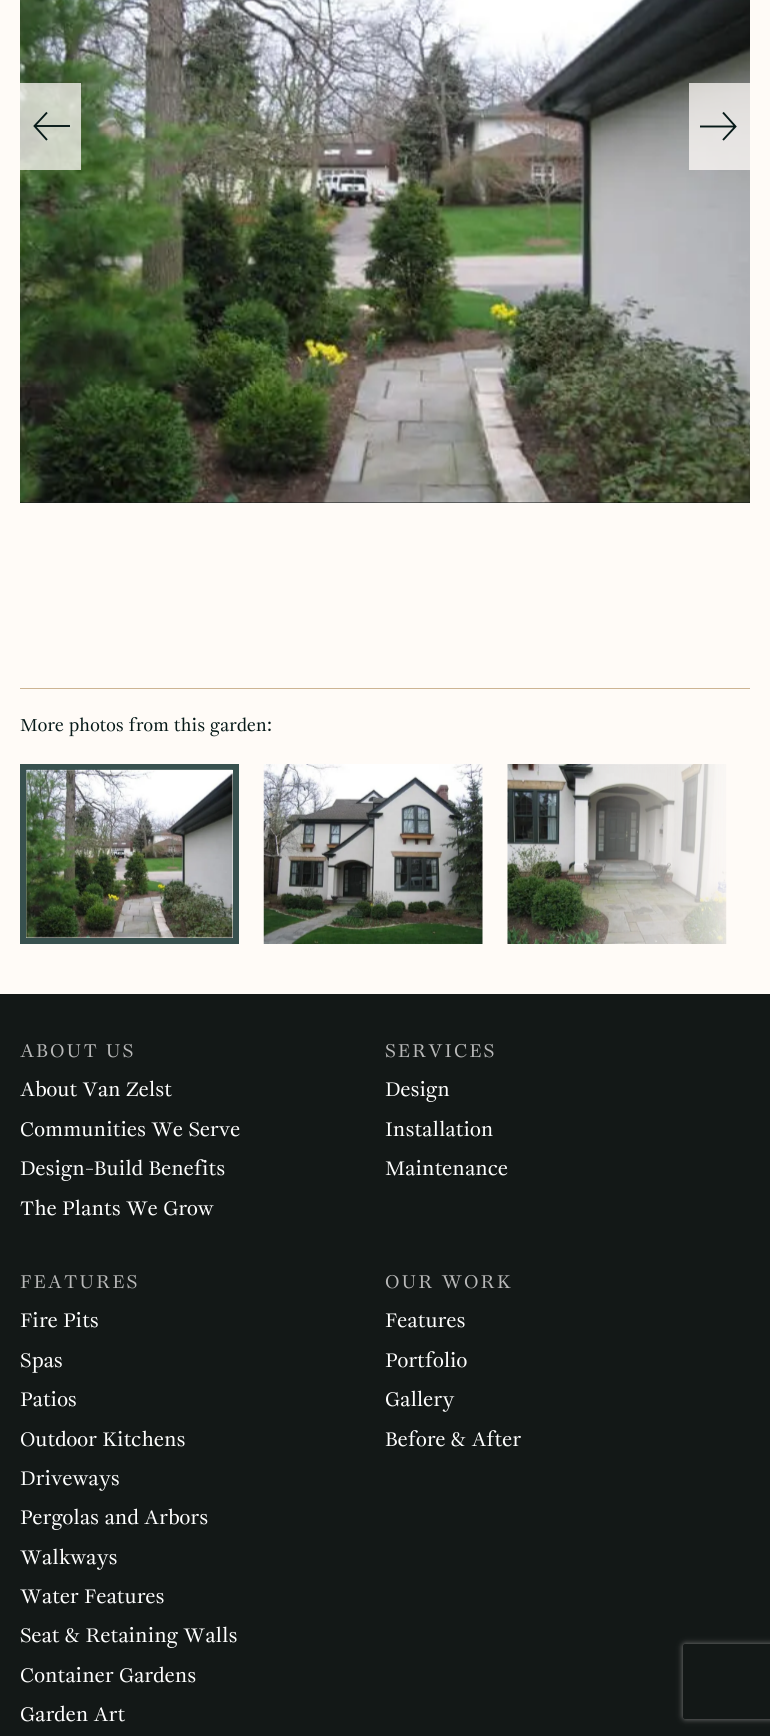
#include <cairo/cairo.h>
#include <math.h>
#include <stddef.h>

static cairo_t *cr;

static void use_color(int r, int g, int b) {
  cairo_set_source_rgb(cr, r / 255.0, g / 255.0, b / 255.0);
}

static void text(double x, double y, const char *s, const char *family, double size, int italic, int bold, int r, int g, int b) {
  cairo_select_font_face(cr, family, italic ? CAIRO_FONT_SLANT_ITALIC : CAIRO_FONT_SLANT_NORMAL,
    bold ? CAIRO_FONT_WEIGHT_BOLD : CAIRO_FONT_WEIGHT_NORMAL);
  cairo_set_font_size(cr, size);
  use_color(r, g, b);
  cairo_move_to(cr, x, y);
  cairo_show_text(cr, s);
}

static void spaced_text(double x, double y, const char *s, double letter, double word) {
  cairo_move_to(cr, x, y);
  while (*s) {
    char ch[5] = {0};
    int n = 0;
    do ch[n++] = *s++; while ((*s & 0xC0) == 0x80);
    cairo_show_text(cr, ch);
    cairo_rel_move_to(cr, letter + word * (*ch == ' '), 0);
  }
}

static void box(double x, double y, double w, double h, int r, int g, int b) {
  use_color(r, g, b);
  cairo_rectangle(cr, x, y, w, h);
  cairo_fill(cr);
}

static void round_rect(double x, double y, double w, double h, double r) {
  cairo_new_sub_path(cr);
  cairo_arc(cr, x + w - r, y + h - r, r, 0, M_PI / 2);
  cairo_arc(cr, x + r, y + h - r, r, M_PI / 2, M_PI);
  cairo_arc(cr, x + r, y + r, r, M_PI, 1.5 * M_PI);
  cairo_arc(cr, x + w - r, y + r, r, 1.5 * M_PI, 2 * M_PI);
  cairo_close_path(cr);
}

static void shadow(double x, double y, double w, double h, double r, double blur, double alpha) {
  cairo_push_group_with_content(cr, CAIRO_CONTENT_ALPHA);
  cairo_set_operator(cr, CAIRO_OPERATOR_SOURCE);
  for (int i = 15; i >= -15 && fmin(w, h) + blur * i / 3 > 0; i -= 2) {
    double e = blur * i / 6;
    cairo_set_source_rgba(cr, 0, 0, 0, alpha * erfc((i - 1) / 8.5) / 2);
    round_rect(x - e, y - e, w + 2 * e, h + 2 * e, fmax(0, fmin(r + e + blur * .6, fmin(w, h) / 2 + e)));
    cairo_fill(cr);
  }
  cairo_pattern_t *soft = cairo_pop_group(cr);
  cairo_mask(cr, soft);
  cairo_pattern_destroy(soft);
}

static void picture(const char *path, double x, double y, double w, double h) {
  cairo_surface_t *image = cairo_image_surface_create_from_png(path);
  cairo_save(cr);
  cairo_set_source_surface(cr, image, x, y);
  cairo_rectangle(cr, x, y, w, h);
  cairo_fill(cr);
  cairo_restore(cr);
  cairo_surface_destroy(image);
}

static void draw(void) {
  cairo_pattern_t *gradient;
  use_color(255, 251, 247);
  cairo_paint(cr);
  box(20, 688, 730, 1, 205, 180, 147);
  box(20, 502, 730, 1, 19, 24, 23);
  picture("img_01.png", 20, 0, 730, 503);
  cairo_set_source_rgba(cr, 1, 0.984, 0.969, 0.75);
  cairo_rectangle(cr, 20, 83, 61, 87);
  cairo_fill(cr);
  cairo_set_source_rgba(cr, 0.024, 0.098, 0.094, 0.95);
  cairo_rectangle(cr, 35, 125, 35, 2);
  cairo_fill(cr);
  cairo_new_path(cr);
  cairo_move_to(cr, 47, 140);
  cairo_line_to(cr, 34.5, 126);
  cairo_line_to(cr, 47, 112.5);
  use_color(6, 25, 24);
  cairo_set_line_width(cr, 1.9);
  cairo_stroke(cr);
  cairo_set_source_rgba(cr, 1, 0.984, 0.969, 0.75);
  cairo_rectangle(cr, 689, 83, 61, 87);
  cairo_fill(cr);
  cairo_new_path(cr);
  cairo_move_to(cr, 700, 126.5);
  cairo_line_to(cr, 735.5, 126.5);
  cairo_move_to(cr, 723, 112.5);
  cairo_line_to(cr, 735.5, 126.5);
  cairo_line_to(cr, 723, 140);
  use_color(6, 25, 24);
  cairo_stroke(cr);
  cairo_rectangle(cr, 23, 767, 213, 174);
  use_color(56, 81, 79);
  cairo_set_line_width(cr, 6);
  cairo_stroke(cr);
  picture("img_02.png", 26, 769, 207, 169);
  picture("img_03.png", 263, 764, 220, 180);
  picture("img_04.png", 507, 764, 220, 180);
  gradient = cairo_pattern_create_linear(569, 854, 749, 854);
  cairo_pattern_add_color_stop_rgba(gradient, 0, 1, 0.984, 0.969, 0);
  cairo_pattern_add_color_stop_rgba(gradient, 1, 1, 0.984, 0.969, 1);
  cairo_pattern_add_color_stop_rgba(gradient, 1, 1, 1, 1, 1);
  cairo_set_source(cr, gradient);
  cairo_pattern_destroy(gradient);
  cairo_rectangle(cr, 573, 764, 154, 180);
  cairo_fill(cr);
  box(0, 994, 770, 742, 19, 24, 23);
  cairo_save(cr);
  cairo_set_fill_rule(cr, CAIRO_FILL_RULE_EVEN_ODD);
  cairo_new_path(cr);
  cairo_move_to(cr, 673, 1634);
  cairo_line_to(cr, 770, 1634);
  cairo_line_to(cr, 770, 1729);
  cairo_line_to(cr, 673, 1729);
  cairo_close_path(cr);
  cairo_move_to(cr, 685.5, 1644);
  cairo_line_to(cr, 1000.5, 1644);
  cairo_curve_to(cr, 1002, 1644, 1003, 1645, 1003, 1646.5);
  cairo_line_to(cr, 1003, 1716.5);
  cairo_curve_to(cr, 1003, 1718, 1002, 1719, 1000.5, 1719);
  cairo_line_to(cr, 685.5, 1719);
  cairo_curve_to(cr, 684, 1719, 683, 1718, 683, 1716.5);
  cairo_line_to(cr, 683, 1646.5);
  cairo_curve_to(cr, 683, 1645, 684, 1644, 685.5, 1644);
  cairo_close_path(cr);
  cairo_clip(cr);
  use_color(128, 128, 128);
  shadow(683, 1644, 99, 75, 2.5, 3, 1);
  cairo_restore(cr);
  text(20, 731, "More photos from this garden:", "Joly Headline", 18.75, 0, 0, 6, 25, 24);
  cairo_set_font_size(cr, 20);
  use_color(185, 185, 185);
  spaced_text(20, 1057, "ABOUT US", 2, 0);
  text(20, 1096, "About Van Zelst", "Joly Headline", 21.25, 0, 0, 255, 255, 255);
  text(20, 1136, "Communities We Serve", "Joly Headline", 21.25, 0, 0, 255, 255, 255);
  text(20, 1175, "Design-Build Benefits", "Joly Headline", 21.25, 0, 0, 255, 255, 255);
  text(20, 1215, "The Plants We Grow", "Joly Headline", 21.25, 0, 0, 255, 255, 255);
  cairo_set_font_size(cr, 20);
  use_color(185, 185, 185);
  spaced_text(385, 1057, "SERVICES", 2, 0);
  text(385, 1096, "Design", "Joly Headline", 21.25, 0, 0, 255, 255, 255);
  text(385, 1136, "Installation", "Joly Headline", 21.25, 0, 0, 255, 255, 255);
  text(385, 1175, "Maintenance", "Joly Headline", 21.25, 0, 0, 255, 255, 255);
  cairo_set_font_size(cr, 20);
  use_color(185, 185, 185);
  spaced_text(20, 1288, "FEATURES", 2, 0);
  text(20, 1327, "Fire Pits", "Joly Headline", 21.25, 0, 0, 255, 255, 255);
  text(20, 1367, "Spas", "Joly Headline", 21.25, 0, 0, 255, 255, 255);
  text(20, 1406, "Patios", "Joly Headline", 21.25, 0, 0, 255, 255, 255);
  text(20, 1446, "Outdoor Kitchens", "Joly Headline", 21.25, 0, 0, 255, 255, 255);
  text(20, 1485, "Driveways", "Joly Headline", 21.25, 0, 0, 255, 255, 255);
  text(20, 1524, "Pergolas and Arbors", "Joly Headline", 21.25, 0, 0, 255, 255, 255);
  text(20, 1564, "Walkways", "Joly Headline", 21.25, 0, 0, 255, 255, 255);
  text(20, 1603, "Water Features", "Joly Headline", 21.25, 0, 0, 255, 255, 255);
  text(20, 1642, "Seat & Retaining Walls", "Joly Headline", 21.25, 0, 0, 255, 255, 255);
  text(20, 1682, "Container Gardens", "Joly Headline", 21.25, 0, 0, 255, 255, 255);
  text(20, 1721, "Garden Art", "Joly Headline", 21.25, 0, 0, 255, 255, 255);
  cairo_set_font_size(cr, 20);
  use_color(185, 185, 185);
  spaced_text(385, 1288, "OUR WORK", 2, 0);
  text(385, 1327, "Features", "Joly Headline", 21.25, 0, 0, 255, 255, 255);
  text(385, 1367, "Portfolio", "Joly Headline", 21.25, 0, 0, 255, 255, 255);
  text(385, 1406, "Gallery", "Joly Headline", 21.25, 0, 0, 255, 255, 255);
  text(385, 1446, "Before & After", "Joly Headline", 21.25, 0, 0, 255, 255, 255);
}

int main(void) {
  cairo_surface_t *surface = cairo_image_surface_create(CAIRO_FORMAT_RGB24, 770, 1736);
  cr = cairo_create(surface);
  cairo_font_options_t *options = cairo_font_options_create();
  cairo_font_options_set_hint_metrics(options, CAIRO_HINT_METRICS_OFF);
  cairo_font_options_set_hint_style(options, CAIRO_HINT_STYLE_NONE);
  cairo_set_font_options(cr, options);
  cairo_set_miter_limit(cr, 4);
  draw();
  cairo_surface_write_to_png(surface, "out.png");
  cairo_font_options_destroy(options);
  cairo_destroy(cr);
  cairo_surface_destroy(surface);
  return 0;
}
